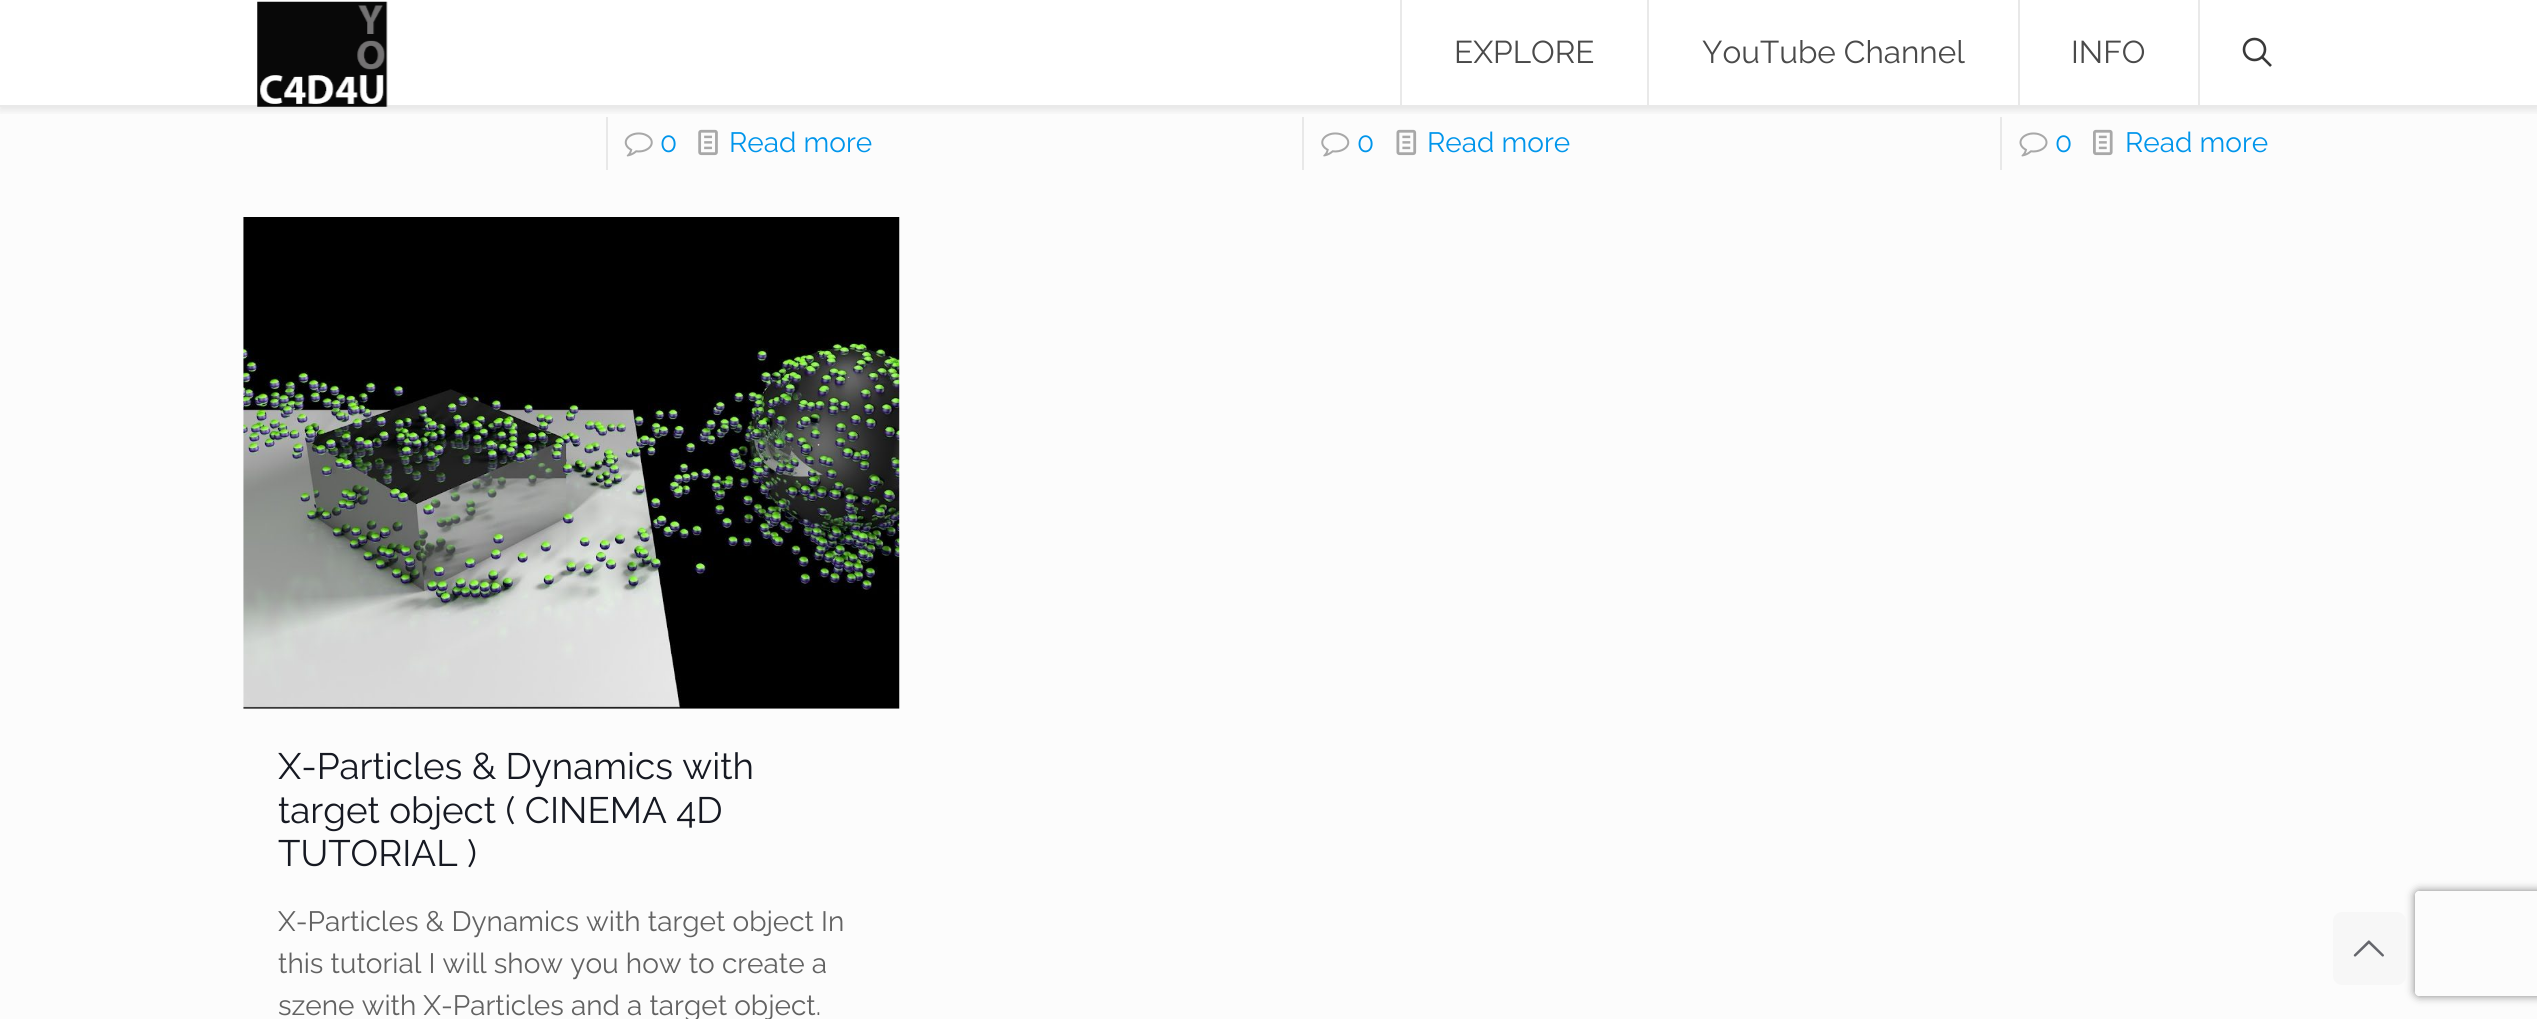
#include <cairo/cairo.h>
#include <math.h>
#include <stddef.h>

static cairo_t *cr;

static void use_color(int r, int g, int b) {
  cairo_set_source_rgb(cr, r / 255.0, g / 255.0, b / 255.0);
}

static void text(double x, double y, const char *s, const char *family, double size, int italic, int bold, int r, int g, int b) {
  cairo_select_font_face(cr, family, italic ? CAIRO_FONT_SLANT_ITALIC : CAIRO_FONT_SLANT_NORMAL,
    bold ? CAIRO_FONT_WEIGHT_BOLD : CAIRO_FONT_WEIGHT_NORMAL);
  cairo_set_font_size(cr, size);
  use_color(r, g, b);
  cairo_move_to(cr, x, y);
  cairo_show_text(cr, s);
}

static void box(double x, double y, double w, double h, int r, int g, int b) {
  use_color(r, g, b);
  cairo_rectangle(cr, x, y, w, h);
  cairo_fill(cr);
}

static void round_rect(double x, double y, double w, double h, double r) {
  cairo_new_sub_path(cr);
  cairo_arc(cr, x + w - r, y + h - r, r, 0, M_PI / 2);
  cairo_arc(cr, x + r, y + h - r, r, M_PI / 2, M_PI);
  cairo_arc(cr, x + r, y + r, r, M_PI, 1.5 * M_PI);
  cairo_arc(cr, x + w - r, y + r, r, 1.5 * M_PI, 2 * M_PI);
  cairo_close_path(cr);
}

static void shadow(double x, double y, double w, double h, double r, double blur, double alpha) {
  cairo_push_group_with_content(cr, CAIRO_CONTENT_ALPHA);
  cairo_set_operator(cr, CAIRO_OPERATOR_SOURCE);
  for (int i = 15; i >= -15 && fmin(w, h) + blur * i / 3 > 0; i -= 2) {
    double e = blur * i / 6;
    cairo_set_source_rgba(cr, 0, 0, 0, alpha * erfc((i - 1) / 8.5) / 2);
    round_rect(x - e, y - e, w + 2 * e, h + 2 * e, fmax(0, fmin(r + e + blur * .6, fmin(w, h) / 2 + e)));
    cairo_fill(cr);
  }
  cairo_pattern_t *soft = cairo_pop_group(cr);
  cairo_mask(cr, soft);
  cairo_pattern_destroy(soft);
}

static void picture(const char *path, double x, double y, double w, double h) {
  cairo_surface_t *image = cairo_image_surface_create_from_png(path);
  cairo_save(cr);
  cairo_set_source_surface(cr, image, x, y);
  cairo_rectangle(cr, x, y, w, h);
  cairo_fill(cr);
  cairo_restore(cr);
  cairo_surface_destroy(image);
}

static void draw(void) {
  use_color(252, 252, 252);
  cairo_paint(cr);
  box(0, 0, 2537, 105, 255, 255, 255);
  box(606, 117, 2, 53, 232, 232, 232);
  box(1302, 117, 2, 53, 232, 232, 232);
  box(2000, 117, 2, 53, 232, 232, 232);
  cairo_save(cr);
  cairo_rectangle(cr, 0, 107, 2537, 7);
  cairo_clip(cr);
  use_color(0, 0, 0);
  shadow(0, 4, 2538, 106, 0, 4.5, 0.1);
  cairo_restore(cr);
  box(0, 105, 2537, 2, 233, 233, 233);
  picture("img_01.png", 257, 1, 131, 106);
  box(1647, 0, 2, 105, 233, 233, 233);
  box(1400, 0, 2, 105, 233, 233, 233);
  cairo_set_source_rgba(cr, 0.91, 0.91, 0.91, 0.97);
  cairo_rectangle(cr, 2018, 0, 2, 105);
  cairo_fill(cr);
  box(2198, 0, 2, 105, 233, 233, 233);
  cairo_arc(cr, 2254.5, 49.5, 10.5, 0, 2 * M_PI);
  use_color(57, 57, 57);
  cairo_set_line_width(cr, 2.6);
  cairo_stroke(cr);
  cairo_new_path(cr);
  cairo_move_to(cr, 2262, 57);
  cairo_line_to(cr, 2271, 66);
  cairo_stroke(cr);
  picture("img_02.png", 624, 132, 29, 25);
  picture("img_03.png", 698, 129, 20, 27);
  picture("img_04.png", 1321, 132, 29, 25);
  picture("img_05.png", 1396, 129, 21, 27);
  picture("img_06.png", 2019, 132, 29, 25);
  picture("img_07.png", 2093, 129, 20, 27);
  picture("img_08.png", 243, 217, 657, 492);
  cairo_save(cr);
  cairo_set_fill_rule(cr, CAIRO_FILL_RULE_EVEN_ODD);
  cairo_new_path(cr);
  cairo_move_to(cr, 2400, 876);
  cairo_line_to(cr, 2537, 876);
  cairo_line_to(cr, 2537, 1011);
  cairo_line_to(cr, 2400, 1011);
  cairo_close_path(cr);
  cairo_move_to(cr, 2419, 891);
  cairo_line_to(cr, 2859, 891);
  cairo_curve_to(cr, 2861, 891, 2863, 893, 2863, 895);
  cairo_line_to(cr, 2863, 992);
  cairo_curve_to(cr, 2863, 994, 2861, 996, 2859, 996);
  cairo_line_to(cr, 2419, 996);
  cairo_curve_to(cr, 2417, 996, 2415, 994, 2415, 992);
  cairo_line_to(cr, 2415, 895);
  cairo_curve_to(cr, 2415, 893, 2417, 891, 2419, 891);
  cairo_close_path(cr);
  cairo_clip(cr);
  use_color(128, 128, 128);
  shadow(2415, 891, 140, 105, 4, 4.5, 1);
  cairo_restore(cr);
  use_color(247, 247, 247);
  round_rect(2333, 912, 73, 73, 9);
  cairo_fill(cr);
  picture("img_09.png", 2353, 940, 31, 17);
  text(1454, 63, "EXPLORE", "Raleway Thin", 31.5, 0, 0, 74, 74, 74);
  text(1702, 63, "YouTube Channel", "Raleway Thin", 31.5, 0, 0, 74, 74, 74);
  text(2071, 63, "INFO", "Raleway Thin", 31.5, 0, 0, 74, 74, 74);
  text(660, 152, "0", "Raleway Thin", 28, 0, 0, 0, 149, 235);
  text(729, 152, "Read more", "Raleway Thin", 28, 0, 0, 0, 149, 235);
  text(1357, 152, "0", "Raleway Thin", 28, 0, 0, 0, 149, 235);
  text(1427, 152, "Read more", "Raleway Thin", 28, 0, 0, 0, 149, 235);
  text(2055, 152, "0", "Raleway Thin", 28, 0, 0, 0, 149, 235);
  text(2125, 152, "Read more", "Raleway Thin", 28, 0, 0, 0, 149, 235);
  text(278, 779, "X-Particles & Dynamics with", "Raleway Thin", 36.75, 0, 0, 22, 25, 34);
  text(278, 823, "target object ( CINEMA 4D", "Raleway Thin", 36.75, 0, 0, 22, 25, 34);
  text(278, 866, "TUTORIAL )", "Raleway Thin", 36.75, 0, 0, 22, 25, 34);
  text(278, 931, "X-Particles & Dynamics with target object In", "Raleway Thin", 28, 0, 0, 98, 98, 98);
  text(278, 973, "this tutorial I will show you how to create a", "Raleway Thin", 28, 0, 0, 98, 98, 98);
  text(278, 1015, "szene with X-Particles and a target object.", "Raleway Thin", 28, 0, 0, 98, 98, 98);
}

int main(void) {
  cairo_surface_t *surface = cairo_image_surface_create(CAIRO_FORMAT_RGB24, 2537, 1019);
  cr = cairo_create(surface);
  cairo_font_options_t *options = cairo_font_options_create();
  cairo_font_options_set_hint_metrics(options, CAIRO_HINT_METRICS_OFF);
  cairo_font_options_set_hint_style(options, CAIRO_HINT_STYLE_NONE);
  cairo_set_font_options(cr, options);
  cairo_set_miter_limit(cr, 4);
  draw();
  cairo_surface_write_to_png(surface, "out.png");
  cairo_font_options_destroy(options);
  cairo_destroy(cr);
  cairo_surface_destroy(surface);
  return 0;
}
